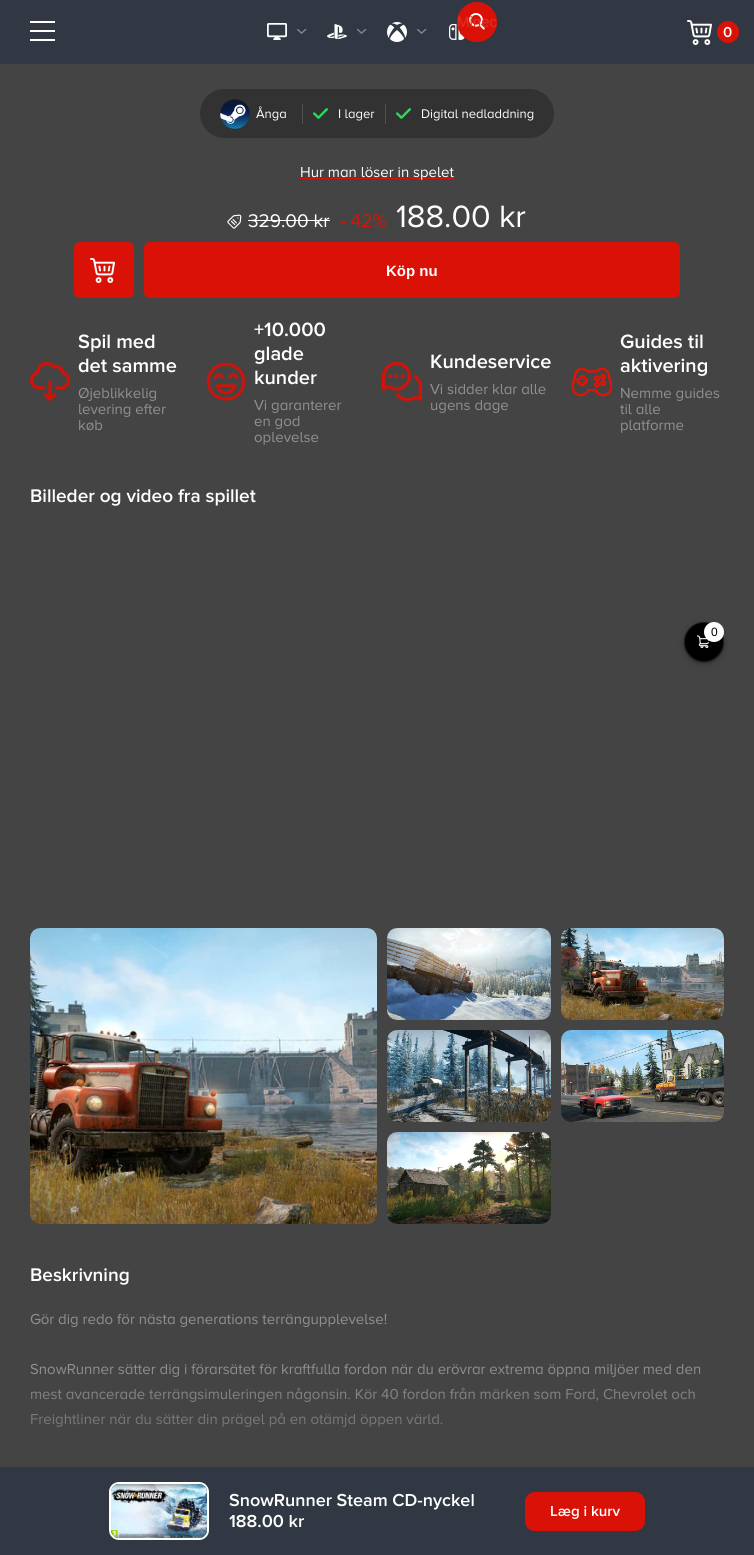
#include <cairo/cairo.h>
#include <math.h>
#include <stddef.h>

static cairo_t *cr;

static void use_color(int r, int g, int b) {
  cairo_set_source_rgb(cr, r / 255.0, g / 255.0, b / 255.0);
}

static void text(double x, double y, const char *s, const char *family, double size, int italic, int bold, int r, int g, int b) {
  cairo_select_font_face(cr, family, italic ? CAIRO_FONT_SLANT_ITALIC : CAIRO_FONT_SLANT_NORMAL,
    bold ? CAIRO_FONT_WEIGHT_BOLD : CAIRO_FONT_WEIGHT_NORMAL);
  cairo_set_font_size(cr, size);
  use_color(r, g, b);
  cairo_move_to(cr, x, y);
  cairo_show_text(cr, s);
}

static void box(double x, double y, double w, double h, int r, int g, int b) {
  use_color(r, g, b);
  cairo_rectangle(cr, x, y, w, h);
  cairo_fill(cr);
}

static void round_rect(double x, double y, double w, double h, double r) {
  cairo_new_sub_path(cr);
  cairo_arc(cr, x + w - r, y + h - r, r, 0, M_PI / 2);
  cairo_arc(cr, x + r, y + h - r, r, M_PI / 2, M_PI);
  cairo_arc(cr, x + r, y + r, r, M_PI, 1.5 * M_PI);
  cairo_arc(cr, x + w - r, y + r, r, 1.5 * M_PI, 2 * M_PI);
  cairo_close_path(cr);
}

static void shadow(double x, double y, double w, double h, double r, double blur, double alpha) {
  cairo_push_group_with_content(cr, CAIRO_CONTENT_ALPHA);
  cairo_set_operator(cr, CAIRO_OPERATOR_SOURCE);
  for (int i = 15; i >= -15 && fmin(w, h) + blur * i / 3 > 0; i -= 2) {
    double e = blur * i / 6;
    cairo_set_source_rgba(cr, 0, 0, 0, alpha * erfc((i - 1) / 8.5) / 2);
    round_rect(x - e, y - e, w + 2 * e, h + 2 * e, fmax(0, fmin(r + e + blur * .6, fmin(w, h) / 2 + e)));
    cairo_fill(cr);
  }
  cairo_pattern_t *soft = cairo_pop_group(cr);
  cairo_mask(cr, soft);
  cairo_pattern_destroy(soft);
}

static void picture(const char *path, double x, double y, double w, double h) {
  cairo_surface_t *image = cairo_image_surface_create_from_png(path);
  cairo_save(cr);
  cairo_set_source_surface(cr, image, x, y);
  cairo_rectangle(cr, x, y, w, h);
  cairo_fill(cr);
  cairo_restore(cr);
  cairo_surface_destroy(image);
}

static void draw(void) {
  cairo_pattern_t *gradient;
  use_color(68, 68, 68);
  cairo_paint(cr);
  box(0, 0, 754, 64, 49, 56, 67);
  picture("img_01.png", 267, 23, 20, 17);
  picture("img_02.png", 297, 29, 10, 5);
  picture("img_03.png", 327, 24, 20, 15);
  picture("img_02.png", 357, 29, 10, 5);
  picture("img_04.png", 387, 22, 20, 20);
  picture("img_02.png", 417, 29, 10, 5);
  picture("img_05.png", 449, 24, 16, 16);
  use_color(218, 17, 6);
  cairo_arc(cr, 477, 22, 20, 0, 2 * M_PI);
  cairo_fill(cr);
  picture("img_06.png", 469, 13, 16, 17);
  box(30, 30, 25, 2, 255, 255, 255);
  box(30, 21, 25, 2, 255, 255, 255);
  box(30, 39, 25, 2, 255, 255, 255);
  picture("img_07.png", 687, 20, 25, 25);
  use_color(218, 17, 6);
  cairo_arc(cr, 728, 32, 11, 0, 2 * M_PI);
  cairo_fill(cr);
  use_color(50, 50, 50);
  round_rect(200, 89, 354, 49, 24.5);
  cairo_fill(cr);
  picture("img_08.png", 220, 99, 30, 30);
  box(302, 104, 1, 20, 81, 81, 81);
  picture("img_09.png", 313, 108, 15, 11);
  box(385, 104, 1, 20, 81, 81, 81);
  picture("img_09.png", 396, 108, 15, 11);
  box(300, 178, 154, 1, 218, 17, 6);
  picture("img_10.png", 227, 214, 15, 15);
  box(248, 220, 82, 1, 255, 255, 255);
  use_color(218, 17, 6);
  round_rect(74, 242, 60, 56, 6);
  cairo_fill(cr);
  picture("img_11.png", 90, 258, 25, 25);
  round_rect(144, 242, 536, 56, 6);
  cairo_fill(cr);
  picture("img_12.png", 30, 362, 40, 40);
  picture("img_13.png", 206, 362, 40, 39);
  picture("img_14.png", 382, 362, 40, 40);
  picture("img_15.png", 572, 367, 40, 30);
  picture("img_16.png", 30, 928, 347, 296);
  picture("img_17.png", 387, 928, 164, 92);
  picture("img_18.png", 561, 928, 163, 92);
  picture("img_19.png", 387, 1030, 164, 92);
  picture("img_20.png", 561, 1030, 163, 92);
  picture("img_21.png", 387, 1132, 164, 92);
  box(0, 1467, 754, 88, 49, 56, 67);
  round_rect(110, 1483, 98, 56, 9);
  use_color(255, 255, 255);
  cairo_stroke(cr);
  picture("img_22.png", 111, 1484, 96, 54);
  use_color(218, 17, 6);
  round_rect(525, 1492, 120, 39, 10);
  cairo_fill(cr);
  use_color(0, 0, 0);
  shadow(684, 624, 40, 40, 20, 3.5, 0.25);
  shadow(684, 623, 40, 40, 20, 0.5, 0.25);
  use_color(0, 0, 0);
  cairo_arc(cr, 704, 642, 20, 0, 2 * M_PI);
  cairo_fill(cr);
  cairo_arc(cr, 704, 642, 19.5, 0, 2 * M_PI);
  cairo_set_source_rgba(cr, 1, 1, 1, 0.1);
  cairo_set_line_width(cr, 1);
  cairo_stroke(cr);
  picture("img_23.png", 697, 635, 13, 14);
  use_color(255, 255, 255);
  cairo_arc(cr, 714, 632, 10, 0, 2 * M_PI);
  cairo_fill(cr);
  text(457, 27, "Minec", "Liberation Sans", 15, 0, 0, 223, 50, 41);
  text(723, 37, "0", "Proxima Nova SemiBold", 15, 0, 0, 255, 255, 255);
  text(256, 118, "Ånga", "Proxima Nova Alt", 13, 0, 0, 255, 255, 255);
  text(338, 118, "I lager", "Proxima Nova Alt", 13, 0, 0, 255, 255, 255);
  text(421, 118, "Digital nedladdning", "Proxima Nova Alt", 13, 0, 0, 255, 255, 255);
  text(300, 177, "Hur man löser in spelet", "Proxima Nova Alt", 15, 0, 0, 255, 255, 255);
  text(248, 227, "329.00 kr", "Proxima Nova Alt", 19, 0, 0, 255, 255, 255);
  text(340, 227, "- 42%", "Proxima Nova Alt", 19, 0, 0, 218, 17, 6);
  text(396, 227, "188.00 kr", "Proxima Nova Alt", 32, 0, 0, 255, 255, 255);
  text(386, 276, "Köp nu", "Liberation Sans", 15, 0, 1, 255, 255, 255);
  text(78, 348, "Spil med", "Proxima Nova SemiBold", 20, 0, 0, 255, 255, 255);
  text(78, 372, "det samme", "Proxima Nova SemiBold", 20, 0, 0, 255, 255, 255);
  text(78, 398, "Øjeblikkelig", "Proxima Nova Alt", 15, 0, 0, 144, 144, 144);
  text(78, 414, "levering efter", "Proxima Nova Alt", 15, 0, 0, 144, 144, 144);
  text(78, 430, "køb", "Proxima Nova Alt", 15, 0, 0, 144, 144, 144);
  text(254, 336, "+10.000", "Proxima Nova SemiBold", 20, 0, 0, 255, 255, 255);
  text(254, 360, "glade", "Proxima Nova SemiBold", 20, 0, 0, 255, 255, 255);
  text(254, 384, "kunder", "Proxima Nova SemiBold", 20, 0, 0, 255, 255, 255);
  text(254, 410, "Vi garanterer", "Proxima Nova Alt", 15, 0, 0, 144, 144, 144);
  text(254, 426, "en god", "Proxima Nova Alt", 15, 0, 0, 144, 144, 144);
  text(254, 442, "oplevelse", "Proxima Nova Alt", 15, 0, 0, 144, 144, 144);
  text(430, 368, "Kundeservice", "Proxima Nova SemiBold", 20, 0, 0, 255, 255, 255);
  text(430, 394, "Vi sidder klar alle", "Proxima Nova Alt", 15, 0, 0, 144, 144, 144);
  text(430, 410, "ugens dage", "Proxima Nova Alt", 15, 0, 0, 144, 144, 144);
  text(620, 348, "Guides til", "Proxima Nova SemiBold", 20, 0, 0, 255, 255, 255);
  text(620, 372, "aktivering", "Proxima Nova SemiBold", 20, 0, 0, 255, 255, 255);
  text(620, 398, "Nemme guides", "Proxima Nova Alt", 15, 0, 0, 144, 144, 144);
  text(620, 414, "til alle", "Proxima Nova Alt", 15, 0, 0, 144, 144, 144);
  text(620, 430, "platforme", "Proxima Nova Alt", 15, 0, 0, 144, 144, 144);
  text(30, 502, "Billeder og video fra spillet", "Proxima Nova SemiBold", 19, 0, 0, 255, 255, 255);
  text(30, 1281, "Beskrivning", "Proxima Nova SemiBold", 19, 0, 0, 255, 255, 255);
  text(30, 1324, "Gör dig redo för nästa generations terrängupplevelse!", "Proxima Nova Alt", 15, 0, 0, 144, 144, 144);
  text(30, 1374, "SnowRunner sätter dig i förarsätet för kraftfulla fordon när du erövrar extrema öppna miljöer med den", "Proxima Nova Alt", 15, 0, 0, 144, 144, 144);
  text(30, 1399, "mest avancerade terrängsimuleringen någonsin. Kör 40 fordon från märken som Ford, Chevrolet och", "Proxima Nova Alt", 15, 0, 0, 144, 144, 144);
  text(30, 1424, "Freightliner när du sätter din prägel på en otämjd öppen värld.", "Proxima Nova Alt", 15, 0, 0, 144, 144, 144);
  gradient = cairo_pattern_create_linear(377, 1364, 377, 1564);
  cairo_pattern_add_color_stop_rgba(gradient, 0, 0.267, 0.267, 0.267, 0);
  cairo_pattern_add_color_stop_rgba(gradient, 0.9, 0.267, 0.267, 0.267, 1);
  cairo_set_source(cr, gradient);
  cairo_pattern_destroy(gradient);
  cairo_rectangle(cr, 31, 1370, 669, 57);
  cairo_fill(cr);
  text(229, 1506, "SnowRunner Steam CD-nyckel", "Proxima Nova SemiBold", 18, 0, 0, 255, 255, 255);
  text(229, 1527, "188.00 kr", "Proxima Nova SemiBold", 18, 0, 0, 255, 255, 255);
  text(550, 1516, "Læg i kurv", "Proxima Nova SemiBold", 15, 0, 0, 255, 255, 255);
  text(711, 636, "0", "Liberation Sans", 12, 0, 0, 0, 0, 0);
}

int main(void) {
  cairo_surface_t *surface = cairo_image_surface_create(CAIRO_FORMAT_RGB24, 754, 1555);
  cr = cairo_create(surface);
  cairo_font_options_t *options = cairo_font_options_create();
  cairo_font_options_set_hint_metrics(options, CAIRO_HINT_METRICS_OFF);
  cairo_font_options_set_hint_style(options, CAIRO_HINT_STYLE_NONE);
  cairo_set_font_options(cr, options);
  cairo_set_miter_limit(cr, 4);
  draw();
  cairo_surface_write_to_png(surface, "out.png");
  cairo_font_options_destroy(options);
  cairo_destroy(cr);
  cairo_surface_destroy(surface);
  return 0;
}
